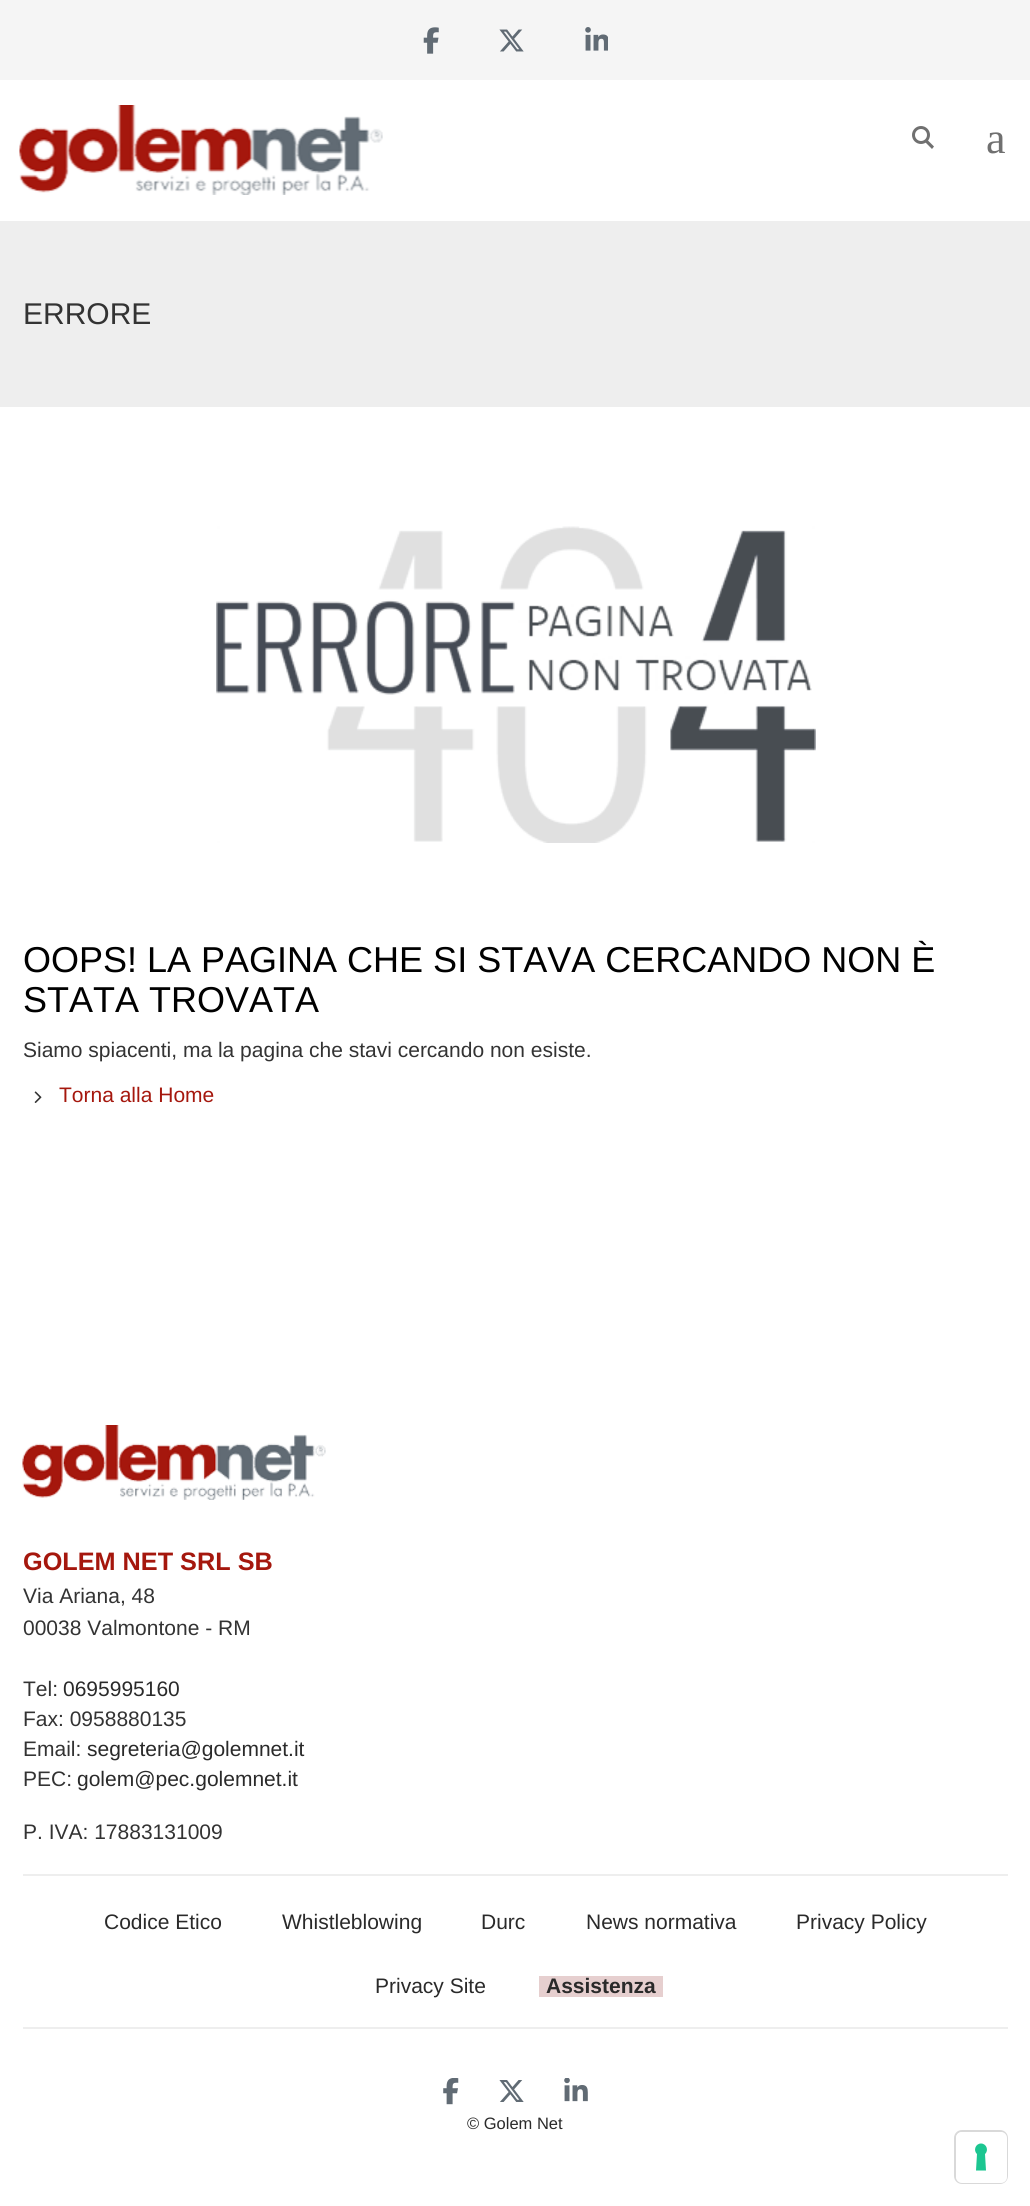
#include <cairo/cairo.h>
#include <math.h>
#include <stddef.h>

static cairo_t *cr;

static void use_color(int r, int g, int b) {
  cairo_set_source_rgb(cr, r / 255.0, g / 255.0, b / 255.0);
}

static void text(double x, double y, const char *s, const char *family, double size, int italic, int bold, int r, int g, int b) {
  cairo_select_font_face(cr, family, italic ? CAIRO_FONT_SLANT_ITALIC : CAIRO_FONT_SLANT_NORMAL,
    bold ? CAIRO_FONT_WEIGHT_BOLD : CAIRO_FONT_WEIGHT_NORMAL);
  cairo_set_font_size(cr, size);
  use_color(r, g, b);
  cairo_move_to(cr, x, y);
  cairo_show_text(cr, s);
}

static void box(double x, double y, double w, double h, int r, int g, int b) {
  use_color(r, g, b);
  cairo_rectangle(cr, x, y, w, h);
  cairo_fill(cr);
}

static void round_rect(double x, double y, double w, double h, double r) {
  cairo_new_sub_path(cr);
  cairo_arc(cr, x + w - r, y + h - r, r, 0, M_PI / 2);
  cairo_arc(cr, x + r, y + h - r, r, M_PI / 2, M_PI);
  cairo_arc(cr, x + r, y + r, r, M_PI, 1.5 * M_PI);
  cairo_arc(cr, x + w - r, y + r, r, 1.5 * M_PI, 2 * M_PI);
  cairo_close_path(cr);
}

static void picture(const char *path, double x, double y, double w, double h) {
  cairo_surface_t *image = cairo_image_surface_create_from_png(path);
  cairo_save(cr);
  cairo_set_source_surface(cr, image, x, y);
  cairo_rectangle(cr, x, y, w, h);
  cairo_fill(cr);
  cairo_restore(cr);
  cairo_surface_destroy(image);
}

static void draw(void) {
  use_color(255, 255, 255);
  cairo_paint(cr);
  box(0, 0, 1030, 80, 245, 245, 245);
  picture("img_01.png", 423, 27, 16, 27);
  picture("img_02.png", 499, 29, 25, 23);
  picture("img_03.png", 585, 27, 23, 24);
  cairo_arc(cr, 921, 135, 7.5, 0, 2 * M_PI);
  use_color(112, 112, 112);
  cairo_set_line_width(cr, 3);
  cairo_stroke(cr);
  cairo_new_path(cr);
  cairo_move_to(cr, 926.5, 139);
  cairo_line_to(cr, 934, 146.5);
  cairo_line_to(cr, 932, 149);
  cairo_line_to(cr, 924.5, 141.5);
  cairo_close_path(cr);
  cairo_fill(cr);
  picture("img_04.png", 19, 105, 364, 90);
  box(0, 221, 1030, 186, 238, 238, 238);
  picture("img_05.png", 216, 526, 600, 317);
  picture("img_06.png", 34, 1091, 8, 12);
  picture("img_07.png", 22, 1425, 304, 75);
  box(23, 1874, 985, 2, 238, 238, 238);
  box(539, 1976, 124, 21, 230, 207, 207);
  box(23, 2027, 985, 2, 238, 238, 238);
  picture("img_08.png", 443, 2078, 16, 27);
  picture("img_09.png", 499, 2080, 25, 22);
  picture("img_10.png", 564, 2078, 24, 24);
  round_rect(955, 2131, 52, 52, 7);
  use_color(217, 217, 217);
  cairo_set_line_width(cr, 2);
  cairo_stroke(cr);
  use_color(255, 255, 255);
  round_rect(956, 2132, 51, 51, 6);
  cairo_fill(cr);
  use_color(28, 198, 145);
  cairo_set_fill_rule(cr, CAIRO_FILL_RULE_EVEN_ODD);
  cairo_new_path(cr);
  cairo_move_to(cr, 981, 2143.5);
  cairo_curve_to(cr, 986.5, 2143.5, 989, 2150.5, 985, 2154);
  cairo_line_to(cr, 986, 2170.5);
  cairo_line_to(cr, 976, 2170.5);
  cairo_line_to(cr, 977, 2154);
  cairo_curve_to(cr, 973, 2150.5, 975.5, 2143.5, 981, 2143.5);
  cairo_close_path(cr);
  cairo_fill(cr);
  text(986, 153, "a", "Liberation Serif", 44, 0, 0, 112, 112, 112);
  text(23, 324, "ERRORE", "Liberation Sans", 30, 0, 0, 51, 51, 51);
  text(23, 972, "OOPS! LA PAGINA CHE SI STAVA CERCANDO NON È", "Liberation Sans", 36, 0, 0, 0, 0, 0);
  text(23, 1012, "STATA TROVATA", "Liberation Sans", 36, 0, 0, 0, 0, 0);
  text(23, 1057, "Siamo spiacenti, ma la pagina che stavi cercando non esiste.", "Liberation Sans", 21, 0, 0, 51, 51, 51);
  text(59, 1102, "Torna alla Home", "Liberation Sans", 21, 0, 0, 165, 23, 13);
  text(23, 1570, "GOLEM NET SRL SB", "Liberation Sans", 25.25, 0, 1, 165, 23, 13);
  text(23, 1603, "Via Ariana, 48", "Liberation Sans", 21, 0, 0, 51, 51, 51);
  text(23, 1635, "00038 Valmontone - RM", "Liberation Sans", 21, 0, 0, 51, 51, 51);
  text(23, 1696, "Tel:", "Liberation Sans", 21, 0, 0, 51, 51, 51);
  text(63, 1696, "0695995160", "Liberation Sans", 21, 0, 0, 42, 42, 42);
  text(23, 1726, "Fax: 0958880135", "Liberation Sans", 21, 0, 0, 51, 51, 51);
  text(23, 1756, "Email:", "Liberation Sans", 21, 0, 0, 51, 51, 51);
  text(87, 1756, "segreteria@golemnet.it", "Liberation Sans", 21, 0, 0, 42, 42, 42);
  text(23, 1786, "PEC:", "Liberation Sans", 21, 0, 0, 51, 51, 51);
  text(77, 1786, "golem@pec.golemnet.it", "Liberation Sans", 21, 0, 0, 42, 42, 42);
  text(23, 1839, "P. IVA: 17883131009", "Liberation Sans", 21, 0, 0, 51, 51, 51);
  text(104, 1929, "Codice Etico", "Liberation Sans", 21, 0, 0, 42, 42, 42);
  text(282, 1929, "Whistleblowing", "Liberation Sans", 21, 0, 0, 42, 42, 42);
  text(481, 1929, "Durc", "Liberation Sans", 21, 0, 0, 42, 42, 42);
  text(586, 1929, "News normativa", "Liberation Sans", 21, 0, 0, 42, 42, 42);
  text(796, 1929, "Privacy Policy", "Liberation Sans", 21, 0, 0, 42, 42, 42);
  text(375, 1993, "Privacy Site", "Liberation Sans", 21, 0, 0, 42, 42, 42);
  text(546, 1993, "Assistenza", "Liberation Sans", 21, 0, 1, 42, 42, 42);
  text(467, 2129, "© Golem Net", "Liberation Sans", 16.5, 0, 0, 42, 42, 42);
}

int main(void) {
  cairo_surface_t *surface = cairo_image_surface_create(CAIRO_FORMAT_RGB24, 1030, 2206);
  cr = cairo_create(surface);
  cairo_font_options_t *options = cairo_font_options_create();
  cairo_font_options_set_hint_metrics(options, CAIRO_HINT_METRICS_OFF);
  cairo_font_options_set_hint_style(options, CAIRO_HINT_STYLE_NONE);
  cairo_set_font_options(cr, options);
  cairo_set_miter_limit(cr, 4);
  draw();
  cairo_surface_write_to_png(surface, "out.png");
  cairo_font_options_destroy(options);
  cairo_destroy(cr);
  cairo_surface_destroy(surface);
  return 0;
}
